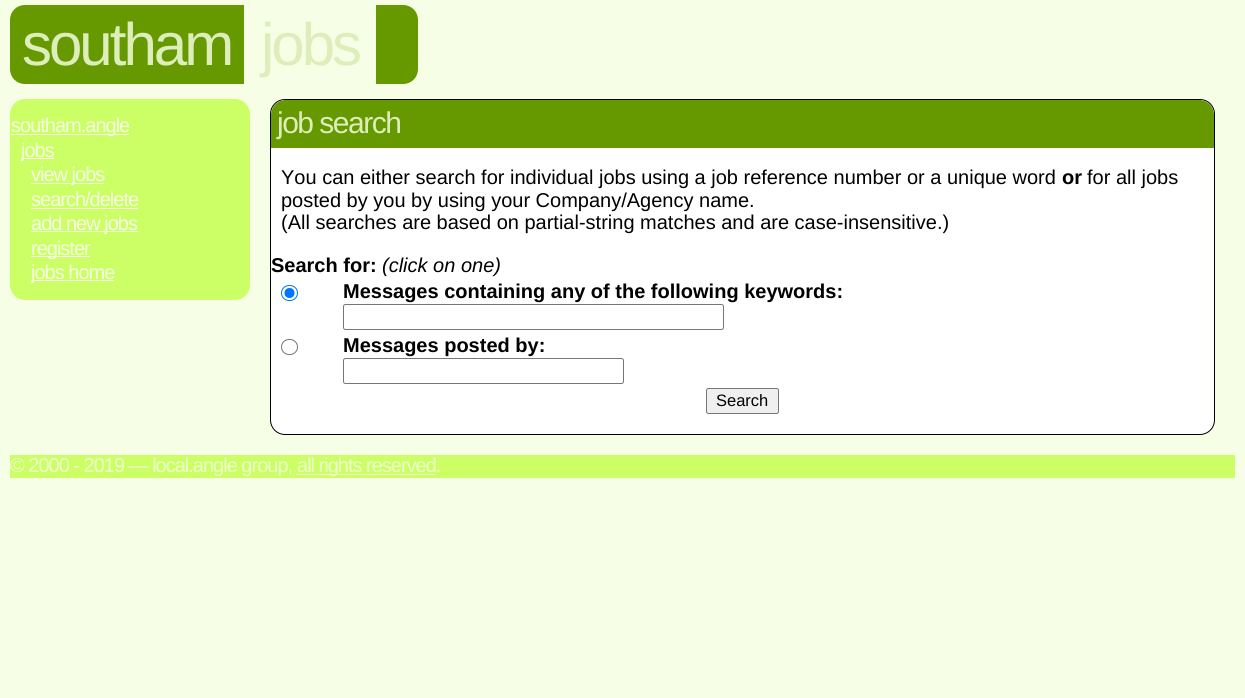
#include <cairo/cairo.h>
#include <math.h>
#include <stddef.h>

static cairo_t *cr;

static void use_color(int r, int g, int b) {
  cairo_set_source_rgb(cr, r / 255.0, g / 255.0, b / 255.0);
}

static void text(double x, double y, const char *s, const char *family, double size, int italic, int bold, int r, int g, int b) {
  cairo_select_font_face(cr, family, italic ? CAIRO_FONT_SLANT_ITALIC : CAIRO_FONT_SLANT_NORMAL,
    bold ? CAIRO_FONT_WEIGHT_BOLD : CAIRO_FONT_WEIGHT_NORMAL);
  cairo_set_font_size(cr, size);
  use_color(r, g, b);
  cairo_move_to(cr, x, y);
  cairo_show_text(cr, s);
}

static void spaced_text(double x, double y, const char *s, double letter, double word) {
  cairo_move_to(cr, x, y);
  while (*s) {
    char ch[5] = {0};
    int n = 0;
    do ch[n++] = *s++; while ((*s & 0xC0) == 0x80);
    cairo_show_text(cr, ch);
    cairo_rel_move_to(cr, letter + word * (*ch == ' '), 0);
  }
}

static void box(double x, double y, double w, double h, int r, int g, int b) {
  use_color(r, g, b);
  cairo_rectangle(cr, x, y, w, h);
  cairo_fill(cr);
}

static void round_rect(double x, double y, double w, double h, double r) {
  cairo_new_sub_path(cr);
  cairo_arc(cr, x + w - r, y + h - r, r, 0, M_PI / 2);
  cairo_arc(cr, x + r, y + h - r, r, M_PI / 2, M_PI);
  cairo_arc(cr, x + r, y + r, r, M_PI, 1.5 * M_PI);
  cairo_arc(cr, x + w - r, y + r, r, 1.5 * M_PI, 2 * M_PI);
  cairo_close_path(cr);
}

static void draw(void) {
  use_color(246, 255, 230);
  cairo_paint(cr);
  use_color(102, 153, 0);
  cairo_new_path(cr);
  cairo_move_to(cr, 25, 5);
  cairo_line_to(cr, 244, 5);
  cairo_line_to(cr, 244, 84);
  cairo_line_to(cr, 25, 84);
  cairo_curve_to(cr, 16.5, 84, 10, 77.5, 10, 69);
  cairo_line_to(cr, 10, 20);
  cairo_curve_to(cr, 10, 11.5, 16.5, 5, 25, 5);
  cairo_close_path(cr);
  cairo_fill(cr);
  cairo_new_path(cr);
  cairo_move_to(cr, 376, 5);
  cairo_line_to(cr, 403, 5);
  cairo_curve_to(cr, 411.5, 5, 418, 11.5, 418, 20);
  cairo_line_to(cr, 418, 69);
  cairo_curve_to(cr, 418, 77.5, 411.5, 84, 403, 84);
  cairo_line_to(cr, 376, 84);
  cairo_close_path(cr);
  cairo_fill(cr);
  use_color(204, 255, 102);
  round_rect(10, 99, 240, 201, 15);
  cairo_fill(cr);
  box(11, 134, 118, 1, 246, 255, 230);
  box(21, 158, 33, 1, 246, 255, 230);
  box(31, 183, 73, 1, 246, 255, 230);
  box(31, 208, 107, 1, 246, 255, 230);
  box(31, 231, 107, 1, 246, 255, 230);
  box(31, 256, 59, 1, 246, 255, 230);
  box(31, 280, 83, 1, 246, 255, 230);
  use_color(255, 255, 255);
  round_rect(270.5, 99.5, 944, 335, 14.5);
  cairo_fill_preserve(cr);
  use_color(0, 0, 0);
  cairo_set_line_width(cr, 1);
  cairo_stroke(cr);
  use_color(102, 153, 0);
  cairo_new_path(cr);
  cairo_move_to(cr, 286, 100);
  cairo_line_to(cr, 1199, 100);
  cairo_curve_to(cr, 1207.5, 100, 1214, 106.5, 1214, 115);
  cairo_line_to(cr, 1214, 148);
  cairo_line_to(cr, 271, 148);
  cairo_line_to(cr, 271, 115);
  cairo_curve_to(cr, 271, 106.5, 277.5, 100, 286, 100);
  cairo_close_path(cr);
  cairo_fill(cr);
  round_rect(281.5, 285.5, 16, 15, 7.5);
  use_color(0, 117, 255);
  cairo_stroke(cr);
  cairo_arc(cr, 289.5, 293, 5, 0, 2 * M_PI);
  cairo_fill(cr);
  round_rect(343.5, 304.5, 380, 25, 2);
  use_color(118, 118, 118);
  cairo_stroke(cr);
  round_rect(281.5, 339.5, 16, 15, 7.5);
  cairo_stroke(cr);
  round_rect(343.5, 358.5, 280, 25, 2);
  cairo_stroke(cr);
  use_color(239, 239, 239);
  round_rect(706.5, 388.5, 72, 25, 2);
  cairo_fill_preserve(cr);
  use_color(118, 118, 118);
  cairo_stroke(cr);
  box(10, 455, 1225, 23, 204, 255, 102);
  box(296, 474, 139, 1, 238, 255, 204);
  cairo_select_font_face(cr, "Liberation Sans", CAIRO_FONT_SLANT_NORMAL, CAIRO_FONT_WEIGHT_NORMAL);
  cairo_set_font_size(cr, 60);
  use_color(221, 238, 187);
  spaced_text(22, 65, "southam", -3, 0);
  spaced_text(261, 65, "jobs", -3, 0);
  cairo_set_font_size(cr, 20);
  use_color(246, 255, 230);
  spaced_text(11, 132, "southam.angle", -1, 0);
  spaced_text(21, 157, "jobs", -1, 0);
  spaced_text(31, 181, "view jobs", -1, 0);
  spaced_text(31, 206, "search/delete", -1, 0);
  spaced_text(31, 230, "add new jobs", -1, 0);
  spaced_text(31, 255, "register", -1, 0);
  spaced_text(31, 279, "jobs home", -1, 0);
  cairo_set_font_size(cr, 30);
  use_color(221, 238, 187);
  spaced_text(277, 133, "job search", -1.5, 0);
  text(281, 184, "You can either search for individual jobs using a job reference number or a unique word", "Liberation Sans", 20, 0, 0, 0, 0, 0);
  text(1062, 184, "or", "Liberation Sans", 20, 0, 1, 0, 0, 0);
  text(1087, 184, "for all jobs", "Liberation Sans", 20, 0, 0, 0, 0, 0);
  text(281, 207, "posted by you by using your Company/Agency name.", "Liberation Sans", 20, 0, 0, 0, 0, 0);
  text(281, 229, "(All searches are based on partial-string matches and are case-insensitive.)", "Liberation Sans", 20, 0, 0, 0, 0, 0);
  text(271, 272, "Search for:", "Liberation Sans", 20, 0, 1, 0, 0, 0);
  text(382, 272, "(click on one)", "Liberation Sans", 20, 1, 0, 0, 0, 0);
  text(343, 298, "Messages containing any of the following keywords:", "Liberation Sans", 20, 0, 1, 0, 0, 0);
  text(343, 352, "Messages posted by:", "Liberation Sans", 20, 0, 1, 0, 0, 0);
  text(716, 406, "Search", "Liberation Sans", 16.5, 0, 0, 0, 0, 0);
  cairo_set_font_size(cr, 20);
  use_color(238, 255, 204);
  spaced_text(10, 472, "© 2000 - 2019 — local.angle group,", -1, 0);
  spaced_text(297, 472, "all rights reserved.", -1, 0);
}

int main(void) {
  cairo_surface_t *surface = cairo_image_surface_create(CAIRO_FORMAT_RGB24, 1245, 698);
  cr = cairo_create(surface);
  cairo_font_options_t *options = cairo_font_options_create();
  cairo_font_options_set_hint_metrics(options, CAIRO_HINT_METRICS_OFF);
  cairo_font_options_set_hint_style(options, CAIRO_HINT_STYLE_NONE);
  cairo_set_font_options(cr, options);
  cairo_set_miter_limit(cr, 4);
  draw();
  cairo_surface_write_to_png(surface, "out.png");
  cairo_font_options_destroy(options);
  cairo_destroy(cr);
  cairo_surface_destroy(surface);
  return 0;
}
